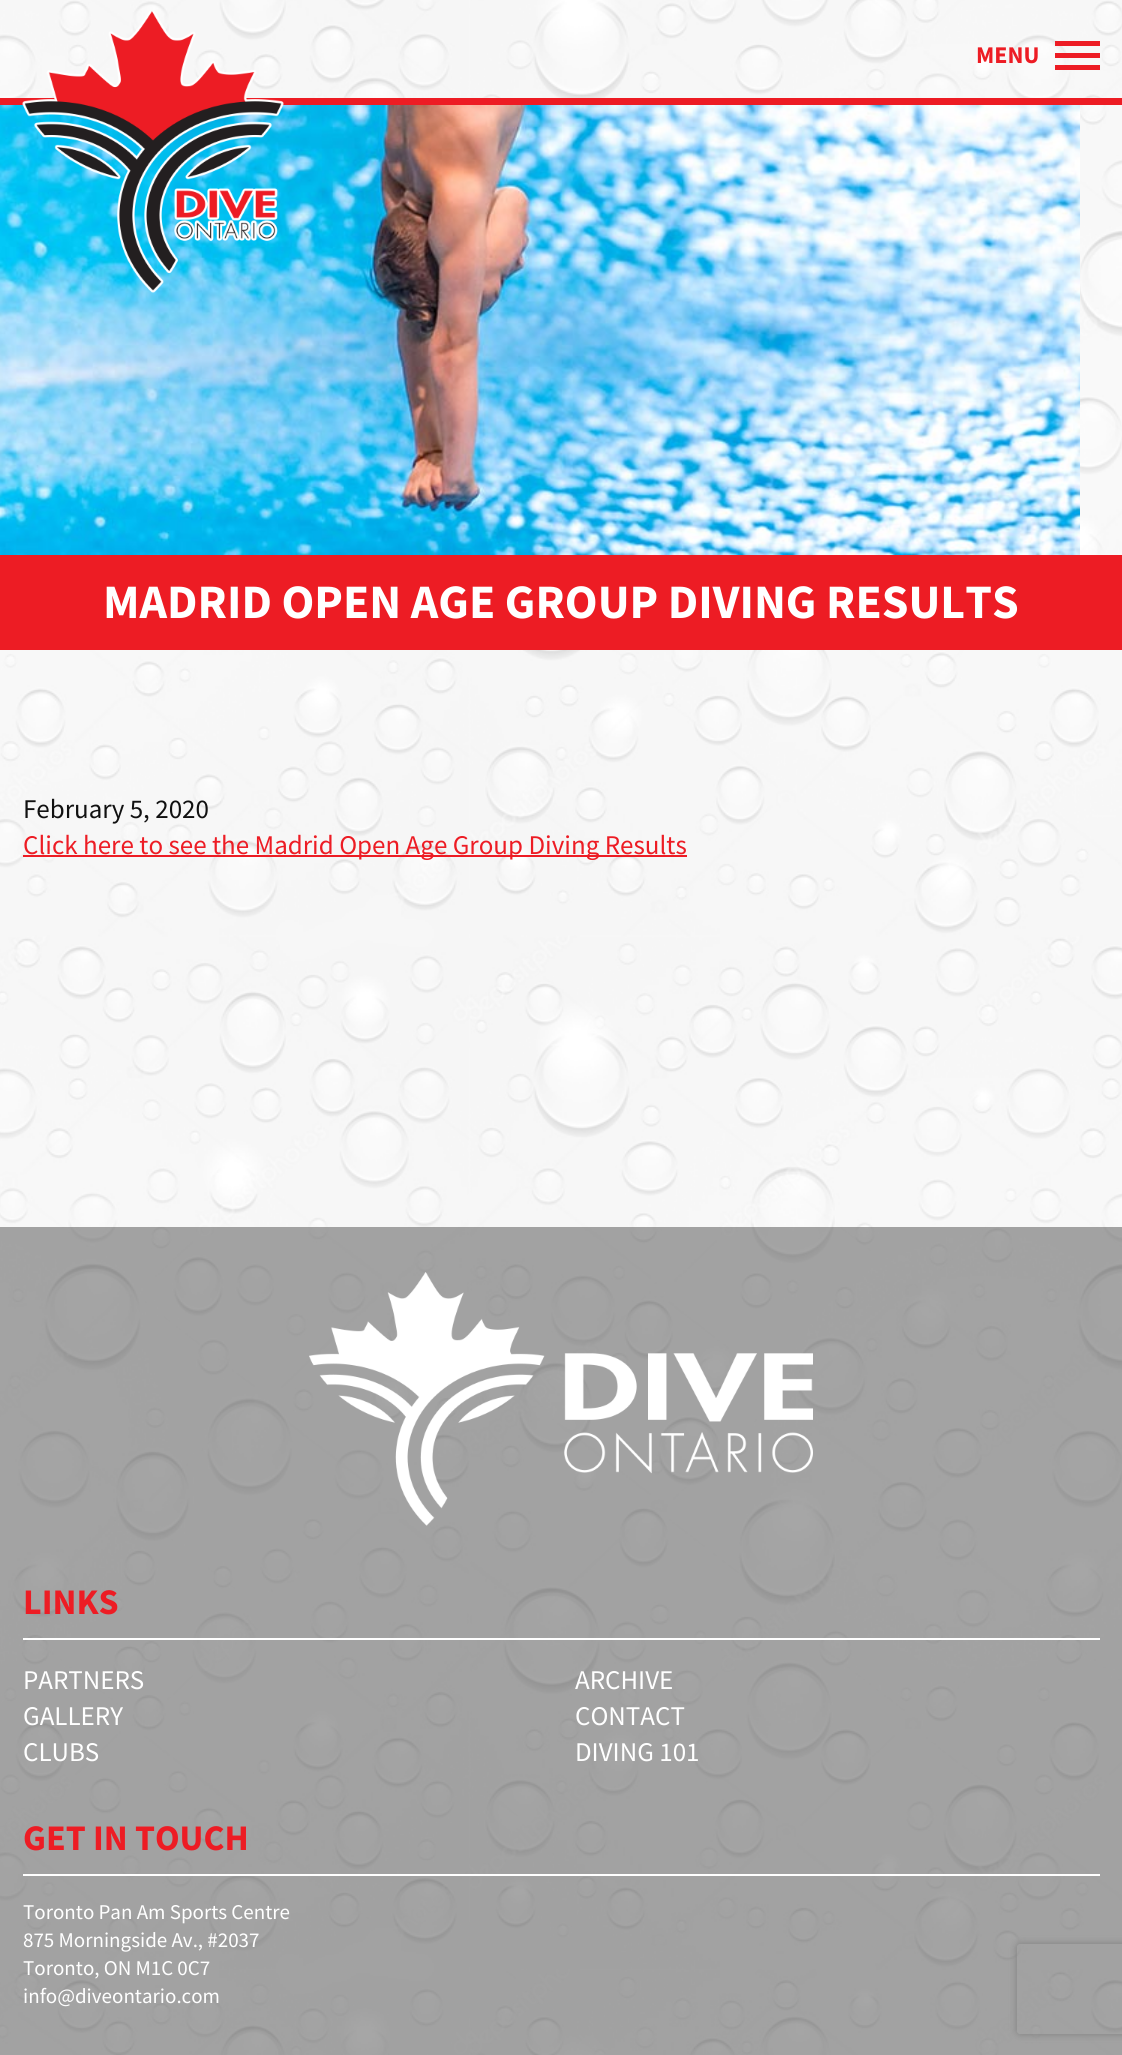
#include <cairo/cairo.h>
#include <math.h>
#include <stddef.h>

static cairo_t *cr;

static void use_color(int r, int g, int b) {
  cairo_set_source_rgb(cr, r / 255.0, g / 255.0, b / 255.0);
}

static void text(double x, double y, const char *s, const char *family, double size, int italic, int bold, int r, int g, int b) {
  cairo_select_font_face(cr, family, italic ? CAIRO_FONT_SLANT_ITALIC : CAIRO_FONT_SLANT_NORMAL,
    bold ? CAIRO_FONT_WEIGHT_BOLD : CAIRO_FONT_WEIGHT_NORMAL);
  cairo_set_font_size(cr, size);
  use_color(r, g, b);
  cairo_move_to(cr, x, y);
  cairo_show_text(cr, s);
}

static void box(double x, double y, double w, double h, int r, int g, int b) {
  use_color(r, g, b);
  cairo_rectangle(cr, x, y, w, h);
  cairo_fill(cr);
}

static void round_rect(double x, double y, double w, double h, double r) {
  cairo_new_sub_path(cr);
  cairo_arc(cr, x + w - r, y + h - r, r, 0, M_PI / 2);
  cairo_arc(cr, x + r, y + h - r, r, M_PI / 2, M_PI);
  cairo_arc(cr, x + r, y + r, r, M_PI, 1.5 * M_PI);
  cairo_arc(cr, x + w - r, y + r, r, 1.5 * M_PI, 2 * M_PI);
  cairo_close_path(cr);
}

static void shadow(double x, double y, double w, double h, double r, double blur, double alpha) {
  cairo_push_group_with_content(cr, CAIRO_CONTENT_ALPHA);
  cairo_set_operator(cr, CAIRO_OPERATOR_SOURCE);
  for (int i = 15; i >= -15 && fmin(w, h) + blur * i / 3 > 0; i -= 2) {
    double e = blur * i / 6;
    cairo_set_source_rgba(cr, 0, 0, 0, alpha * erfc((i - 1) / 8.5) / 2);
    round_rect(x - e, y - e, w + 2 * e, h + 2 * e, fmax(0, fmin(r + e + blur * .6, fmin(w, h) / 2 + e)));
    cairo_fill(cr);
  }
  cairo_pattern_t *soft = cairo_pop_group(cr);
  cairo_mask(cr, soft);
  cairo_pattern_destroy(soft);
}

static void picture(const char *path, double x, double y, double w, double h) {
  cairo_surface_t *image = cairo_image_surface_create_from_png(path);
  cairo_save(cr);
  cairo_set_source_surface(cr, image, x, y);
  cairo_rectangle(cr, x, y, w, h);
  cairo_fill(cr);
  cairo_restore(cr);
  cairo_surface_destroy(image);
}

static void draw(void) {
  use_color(255, 255, 255);
  cairo_paint(cr);
  picture("img_01.png", 0, 0, 1122, 2055);
  box(0, 98, 1122, 7, 237, 28, 36);
  picture("img_03.png", 0, 105, 1080, 450);
  picture("img_02.png", 22, 11, 262, 282);
  box(1055, 41, 45, 5, 237, 28, 36);
  box(1055, 53, 45, 5, 237, 28, 36);
  box(1055, 65, 45, 5, 237, 28, 36);
  box(0, 555, 1122, 95, 237, 28, 36);
  box(23, 855, 664, 2, 237, 28, 36);
  cairo_set_source_rgba(cr, 0.271, 0.271, 0.271, 0.48);
  cairo_rectangle(cr, 0, 1227, 1122, 828);
  cairo_fill(cr);
  picture("img_04.png", 309, 1272, 504, 254);
  box(23, 1638, 1077, 2, 255, 255, 255);
  box(23, 1874, 1077, 2, 255, 255, 255);
  cairo_save(cr);
  cairo_set_fill_rule(cr, CAIRO_FILL_RULE_EVEN_ODD);
  cairo_new_path(cr);
  cairo_move_to(cr, 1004, 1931);
  cairo_line_to(cr, 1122, 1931);
  cairo_line_to(cr, 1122, 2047);
  cairo_line_to(cr, 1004, 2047);
  cairo_close_path(cr);
  cairo_move_to(cr, 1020, 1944);
  cairo_line_to(cr, 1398, 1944);
  cairo_curve_to(cr, 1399.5, 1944, 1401, 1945.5, 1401, 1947);
  cairo_line_to(cr, 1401, 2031);
  cairo_curve_to(cr, 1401, 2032.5, 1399.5, 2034, 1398, 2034);
  cairo_line_to(cr, 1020, 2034);
  cairo_curve_to(cr, 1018.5, 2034, 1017, 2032.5, 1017, 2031);
  cairo_line_to(cr, 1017, 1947);
  cairo_curve_to(cr, 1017, 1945.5, 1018.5, 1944, 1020, 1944);
  cairo_close_path(cr);
  cairo_clip(cr);
  use_color(128, 128, 128);
  shadow(1017, 1944, 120, 90, 3, 4, 1);
  cairo_restore(cr);
  text(976, 63, "MENU", "Source Sans Pro", 24, 0, 1, 237, 28, 36);
  text(103, 618, "MADRID OPEN AGE GROUP DIVING RESULTS", "Source Sans Pro", 48, 0, 1, 255, 255, 255);
  text(23, 818, "February 5, 2020", "Source Sans Pro", 27, 0, 0, 17, 17, 17);
  text(23, 854, "Click here to see the Madrid Open Age Group Diving Results", "Source Sans Pro", 27, 0, 0, 237, 28, 36);
  text(23, 1614, "LINKS", "Source Sans Pro", 36, 0, 1, 237, 28, 36);
  text(23, 1689, "PARTNERS", "Source Sans Pro", 27, 0, 0, 255, 255, 255);
  text(575, 1689, "ARCHIVE", "Source Sans Pro", 27, 0, 0, 255, 255, 255);
  text(23, 1725, "GALLERY", "Source Sans Pro", 27, 0, 0, 255, 255, 255);
  text(575, 1725, "CONTACT", "Source Sans Pro", 27, 0, 0, 255, 255, 255);
  text(23, 1761, "CLUBS", "Source Sans Pro", 27, 0, 0, 255, 255, 255);
  text(575, 1761, "DIVING 101", "Source Sans Pro", 27, 0, 0, 255, 255, 255);
  text(23, 1850, "GET IN TOUCH", "Source Sans Pro", 36, 0, 1, 237, 28, 36);
  text(23, 1919, "Toronto Pan Am Sports Centre", "Source Sans Pro", 21, 0, 0, 255, 255, 255);
  text(23, 1947, "875 Morningside Av., #2037", "Source Sans Pro", 21, 0, 0, 255, 255, 255);
  text(23, 1975, "Toronto, ON M1C 0C7", "Source Sans Pro", 21, 0, 0, 255, 255, 255);
  text(23, 2003, "info@diveontario.com", "Source Sans Pro", 21, 0, 0, 255, 255, 255);
}

int main(void) {
  cairo_surface_t *surface = cairo_image_surface_create(CAIRO_FORMAT_RGB24, 1122, 2055);
  cr = cairo_create(surface);
  cairo_font_options_t *options = cairo_font_options_create();
  cairo_font_options_set_hint_metrics(options, CAIRO_HINT_METRICS_OFF);
  cairo_font_options_set_hint_style(options, CAIRO_HINT_STYLE_NONE);
  cairo_set_font_options(cr, options);
  cairo_set_miter_limit(cr, 4);
  draw();
  cairo_surface_write_to_png(surface, "out.png");
  cairo_font_options_destroy(options);
  cairo_destroy(cr);
  cairo_surface_destroy(surface);
  return 0;
}
